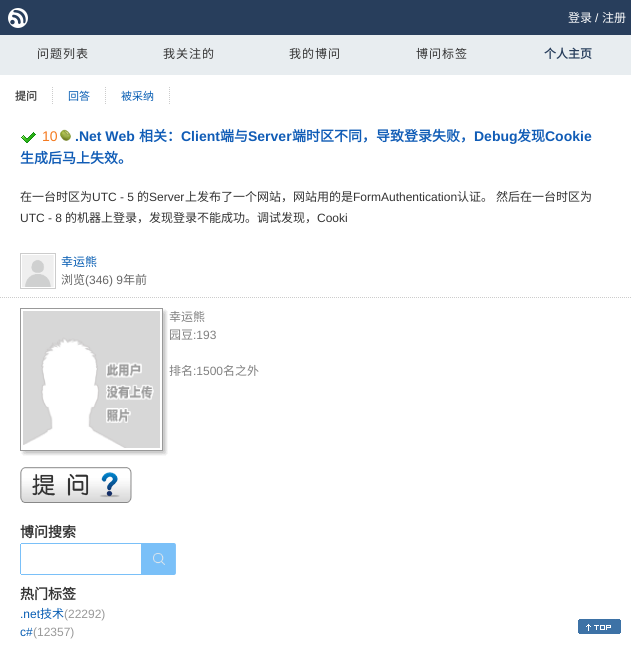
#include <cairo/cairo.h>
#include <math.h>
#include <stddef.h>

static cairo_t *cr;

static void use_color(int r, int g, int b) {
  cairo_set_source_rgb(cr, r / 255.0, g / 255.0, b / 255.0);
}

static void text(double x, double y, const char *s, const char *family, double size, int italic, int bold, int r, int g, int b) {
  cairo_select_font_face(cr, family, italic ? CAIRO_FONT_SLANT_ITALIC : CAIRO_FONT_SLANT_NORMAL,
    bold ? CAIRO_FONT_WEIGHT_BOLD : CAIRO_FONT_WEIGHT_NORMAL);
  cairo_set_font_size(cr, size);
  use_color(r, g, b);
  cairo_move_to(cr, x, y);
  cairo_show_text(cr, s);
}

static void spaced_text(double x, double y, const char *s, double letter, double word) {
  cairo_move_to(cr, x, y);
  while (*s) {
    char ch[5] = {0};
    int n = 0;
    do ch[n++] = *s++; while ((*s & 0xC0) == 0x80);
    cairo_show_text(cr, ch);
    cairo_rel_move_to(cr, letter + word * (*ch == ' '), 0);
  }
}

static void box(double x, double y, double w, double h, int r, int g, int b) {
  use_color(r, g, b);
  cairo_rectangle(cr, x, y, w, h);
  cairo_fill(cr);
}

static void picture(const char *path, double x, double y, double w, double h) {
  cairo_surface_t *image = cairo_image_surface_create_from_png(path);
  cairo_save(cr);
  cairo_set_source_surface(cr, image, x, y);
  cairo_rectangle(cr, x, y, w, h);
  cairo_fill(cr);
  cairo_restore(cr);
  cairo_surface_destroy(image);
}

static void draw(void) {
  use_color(255, 255, 255);
  cairo_paint(cr);
  box(0, 0, 631, 35, 40, 62, 92);
  picture("img_01.png", 8, 8, 20, 20);
  box(0, 35, 631, 40, 232, 237, 240);
  cairo_new_path(cr);
  cairo_move_to(cr, 52.5, 87);
  cairo_line_to(cr, 52.5, 105);
  use_color(204, 204, 204);
  cairo_set_line_width(cr, 1);
  cairo_set_dash(cr, (double[]){1, 1}, 2, 0);
  cairo_stroke(cr);
  cairo_new_path(cr);
  cairo_move_to(cr, 105.5, 87);
  cairo_line_to(cr, 105.5, 105);
  cairo_stroke(cr);
  cairo_new_path(cr);
  cairo_move_to(cr, 169.5, 87);
  cairo_line_to(cr, 169.5, 105);
  cairo_stroke(cr);
  cairo_new_path(cr);
  cairo_move_to(cr, 0, 297.5);
  cairo_line_to(cr, 631, 297.5);
  cairo_stroke(cr);
  picture("img_02.png", 21, 132, 15, 11);
  picture("img_03.png", 60, 129, 11, 12);
  cairo_rectangle(cr, 20.5, 253.5, 35, 35);
  cairo_set_dash(cr, NULL, 0, 0);
  cairo_stroke(cr);
  picture("img_04.png", 22, 255, 32, 32);
  picture("img_05.png", 21, 309, 147, 147);
  picture("img_06.png", 163, 308, 5, 6);
  picture("img_07.png", 20, 451, 6, 5);
  cairo_rectangle(cr, 20.5, 308.5, 142, 142);
  use_color(153, 153, 153);
  cairo_stroke(cr);
  picture("img_08.png", 23, 311, 137, 137);
  picture("img_09.png", 20, 467, 112, 36);
  box(21, 543, 120, 1, 122, 192, 248);
  box(21, 574, 120, 1, 122, 192, 248);
  box(20, 544, 1, 30, 122, 192, 248);
  cairo_new_path(cr);
  cairo_move_to(cr, 141, 543);
  cairo_line_to(cr, 174, 543);
  cairo_curve_to(cr, 175, 543, 176, 544, 176, 545);
  cairo_line_to(cr, 176, 573);
  cairo_curve_to(cr, 176, 574, 175, 575, 174, 575);
  cairo_line_to(cr, 141, 575);
  cairo_close_path(cr);
  cairo_fill(cr);
  picture("img_10.png", 153, 553, 12, 12);
  cairo_set_source_rgba(cr, 0.925, 0.965, 1, 0.1);
  cairo_rectangle(cr, 175, 544, 1, 30);
  cairo_fill(cr);
  picture("img_11.png", 578, 619, 43, 15);
  text(568, 22, "登录", "Noto Sans CJK SC", 12, 0, 0, 255, 255, 255);
  text(595, 22, "/", "Liberation Sans", 12, 0, 0, 255, 255, 255);
  text(602, 22, "注册", "Noto Sans CJK SC", 12, 0, 0, 255, 255, 255);
  use_color(51, 51, 51);
  spaced_text(37, 58, "问题列表", 1, 0);
  spaced_text(163, 58, "我关注的", 1, 0);
  spaced_text(289, 58, "我的博问", 1, 0);
  spaced_text(416, 58, "博问标签", 1, 0);
  text(544, 58, "个人主页", "Noto Sans CJK SC", 12, 0, 1, 40, 62, 92);
  text(15, 100, "提问", "Noto Sans CJK SC", 11, 0, 1, 68, 68, 68);
  text(68, 100, "回答", "Noto Sans CJK SC", 11, 0, 0, 7, 93, 179);
  text(121, 100, "被采纳", "Noto Sans CJK SC", 11, 0, 0, 7, 93, 179);
  text(42, 141, "10", "Liberation Sans", 14, 0, 0, 244, 122, 32);
  text(75, 141, ".Net Web", "Liberation Sans", 14, 0, 1, 16, 92, 182);
  text(139, 141, "相关：", "Noto Sans CJK SC", 14, 0, 1, 16, 92, 182);
  text(181, 141, "Client", "Liberation Sans", 14, 0, 1, 16, 92, 182);
  text(220, 141, "端与", "Noto Sans CJK SC", 14, 0, 1, 16, 92, 182);
  text(248, 141, "Server", "Liberation Sans", 14, 0, 1, 16, 92, 182);
  text(292, 141, "端时区不同，导致登录失败，", "Noto Sans CJK SC", 14, 0, 1, 16, 92, 182);
  text(474, 141, "Debug", "Liberation Sans", 14, 0, 1, 16, 92, 182);
  text(517, 141, "发现", "Noto Sans CJK SC", 14, 0, 1, 16, 92, 182);
  text(545, 141, "Cookie", "Liberation Sans", 14, 0, 1, 16, 92, 182);
  text(20, 163, "生成后马上失效。", "Noto Sans CJK SC", 14, 0, 1, 16, 92, 182);
  text(20, 201, "在一台时区为", "Noto Sans CJK SC", 12, 0, 0, 51, 51, 51);
  text(92, 201, "UTC - 5", "Liberation Sans", 12, 0, 0, 51, 51, 51);
  text(137, 201, "的", "Noto Sans CJK SC", 12, 0, 0, 51, 51, 51);
  text(149, 201, "Server", "Liberation Sans", 12, 0, 0, 51, 51, 51);
  text(185, 201, "上发布了一个网站，网站用的是", "Noto Sans CJK SC", 12, 0, 0, 51, 51, 51);
  text(353, 201, "FormAuthentication", "Liberation Sans", 12, 0, 0, 51, 51, 51);
  text(457, 201, "认证。", "Noto Sans CJK SC", 12, 0, 0, 51, 51, 51);
  text(496, 201, "然后在一台时区为", "Noto Sans CJK SC", 12, 0, 0, 51, 51, 51);
  text(20, 222, "UTC - 8", "Liberation Sans", 12, 0, 0, 51, 51, 51);
  text(65, 222, "的机器上登录，发现登录不能成功。调试发现，", "Noto Sans CJK SC", 12, 0, 0, 51, 51, 51);
  text(317, 222, "Cooki", "Liberation Sans", 12, 0, 0, 51, 51, 51);
  text(61, 266, "幸运熊", "Noto Sans CJK SC", 12, 0, 0, 7, 93, 179);
  text(61, 284, "浏览", "Noto Sans CJK SC", 12, 0, 0, 102, 102, 102);
  text(85, 284, "(346) 9", "Liberation Sans", 12, 0, 0, 102, 102, 102);
  text(123, 284, "年前", "Noto Sans CJK SC", 12, 0, 0, 102, 102, 102);
  text(169, 321, "幸运熊", "Noto Sans CJK SC", 12, 0, 0, 128, 128, 128);
  text(169, 339, "园豆", "Noto Sans CJK SC", 12, 0, 0, 128, 128, 128);
  text(193, 339, ":193", "Liberation Sans", 12, 0, 0, 128, 128, 128);
  text(169, 375, "排名", "Noto Sans CJK SC", 12, 0, 0, 128, 128, 128);
  text(193, 375, ":1500", "Liberation Sans", 12, 0, 0, 128, 128, 128);
  text(223, 375, "名之外", "Noto Sans CJK SC", 12, 0, 0, 128, 128, 128);
  text(20, 537, "博问搜索", "Noto Sans CJK SC", 14, 0, 1, 51, 51, 51);
  text(20, 599, "热门标签", "Noto Sans CJK SC", 14, 0, 1, 51, 51, 51);
  text(20, 618, ".net", "Liberation Sans", 12, 0, 0, 7, 93, 179);
  text(40, 618, "技术", "Noto Sans CJK SC", 12, 0, 0, 7, 93, 179);
  text(64, 618, "(22292)", "Liberation Sans", 12, 0, 0, 153, 153, 153);
  text(20, 636, "c#", "Liberation Sans", 12, 0, 0, 7, 93, 179);
  text(33, 636, "(12357)", "Liberation Sans", 12, 0, 0, 153, 153, 153);
}

int main(void) {
  cairo_surface_t *surface = cairo_image_surface_create(CAIRO_FORMAT_RGB24, 631, 649);
  cr = cairo_create(surface);
  cairo_font_options_t *options = cairo_font_options_create();
  cairo_font_options_set_hint_metrics(options, CAIRO_HINT_METRICS_OFF);
  cairo_font_options_set_hint_style(options, CAIRO_HINT_STYLE_NONE);
  cairo_set_font_options(cr, options);
  cairo_set_miter_limit(cr, 4);
  draw();
  cairo_surface_write_to_png(surface, "out.png");
  cairo_font_options_destroy(options);
  cairo_destroy(cr);
  cairo_surface_destroy(surface);
  return 0;
}
